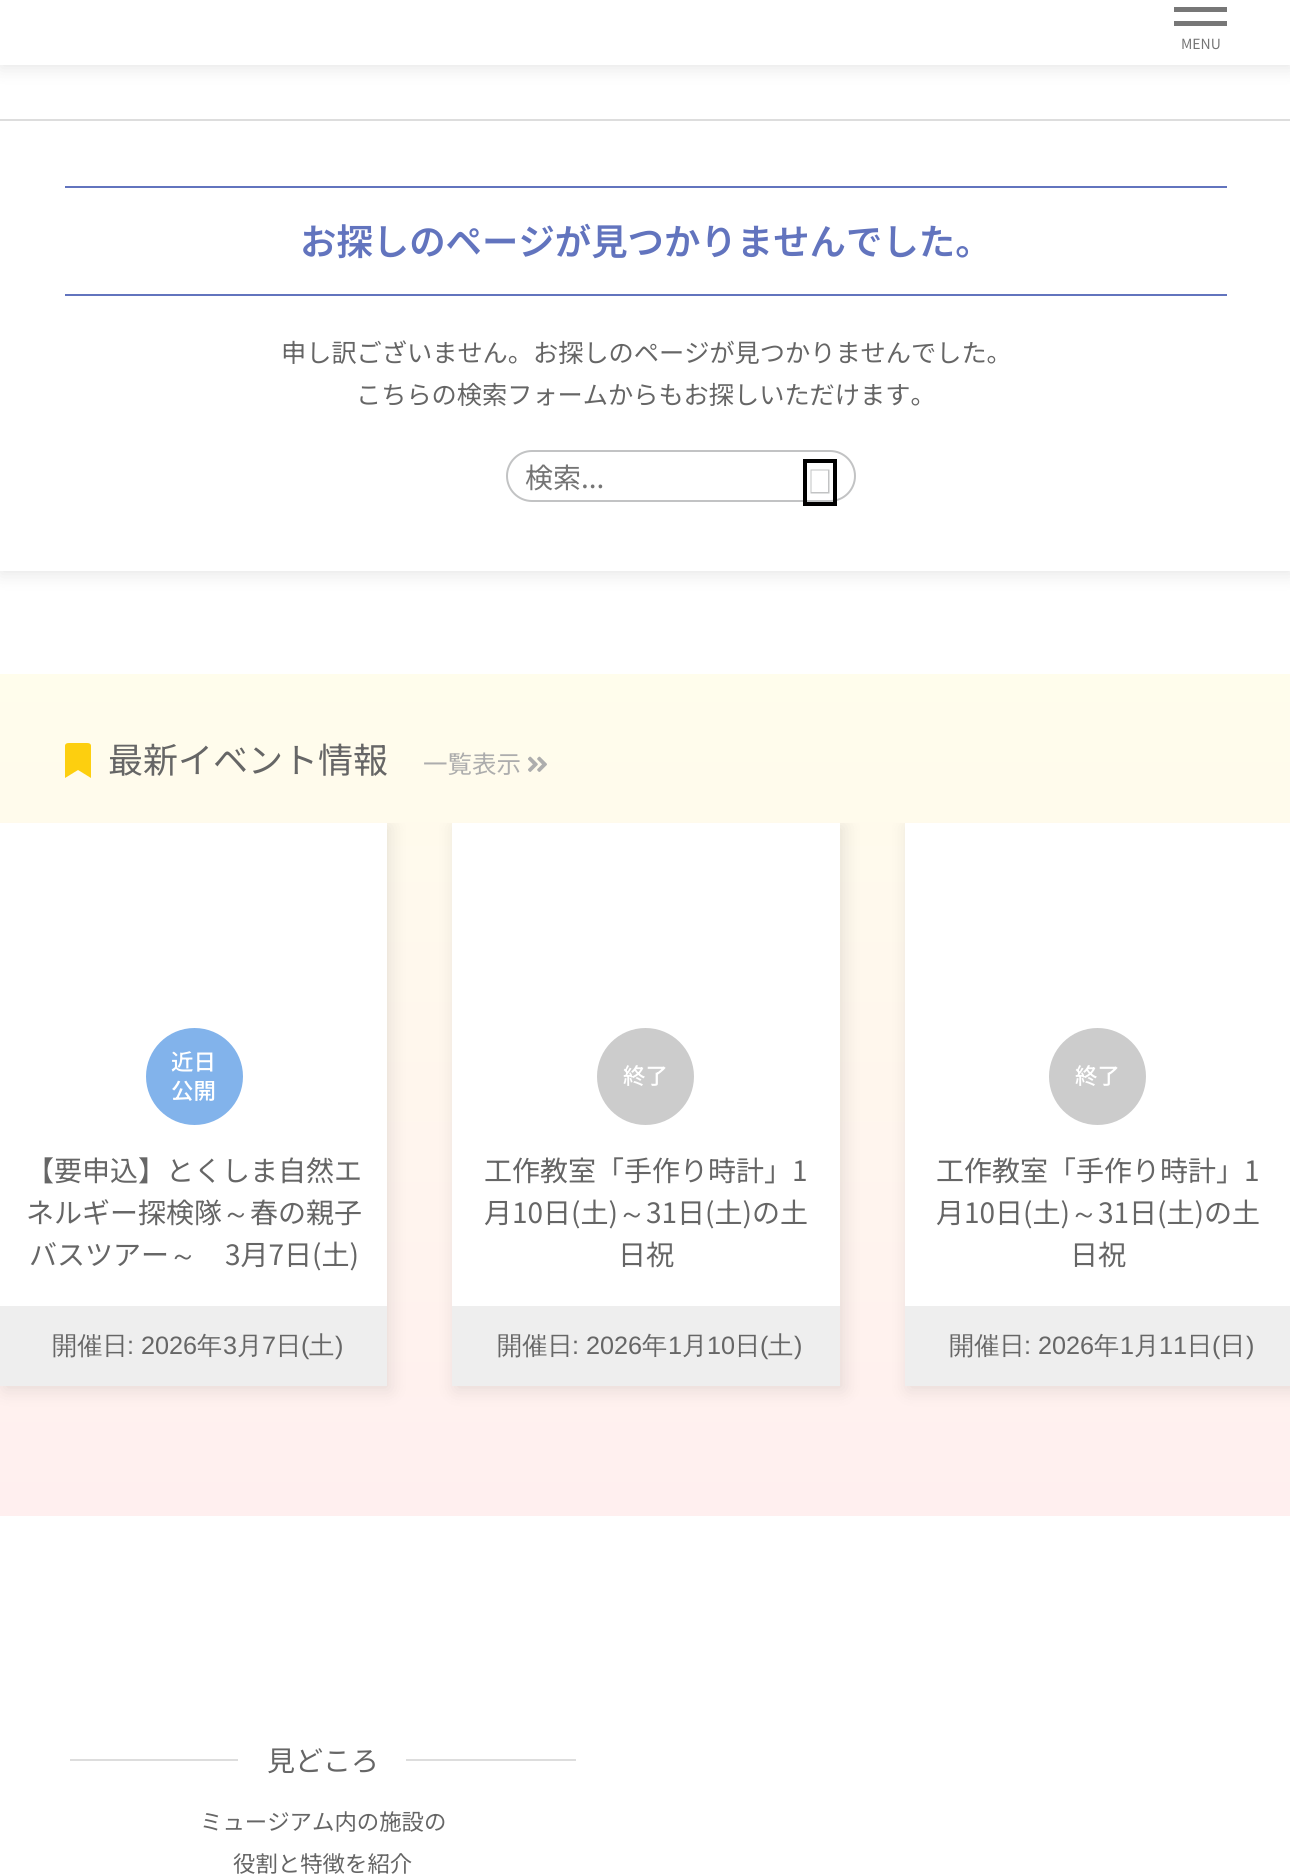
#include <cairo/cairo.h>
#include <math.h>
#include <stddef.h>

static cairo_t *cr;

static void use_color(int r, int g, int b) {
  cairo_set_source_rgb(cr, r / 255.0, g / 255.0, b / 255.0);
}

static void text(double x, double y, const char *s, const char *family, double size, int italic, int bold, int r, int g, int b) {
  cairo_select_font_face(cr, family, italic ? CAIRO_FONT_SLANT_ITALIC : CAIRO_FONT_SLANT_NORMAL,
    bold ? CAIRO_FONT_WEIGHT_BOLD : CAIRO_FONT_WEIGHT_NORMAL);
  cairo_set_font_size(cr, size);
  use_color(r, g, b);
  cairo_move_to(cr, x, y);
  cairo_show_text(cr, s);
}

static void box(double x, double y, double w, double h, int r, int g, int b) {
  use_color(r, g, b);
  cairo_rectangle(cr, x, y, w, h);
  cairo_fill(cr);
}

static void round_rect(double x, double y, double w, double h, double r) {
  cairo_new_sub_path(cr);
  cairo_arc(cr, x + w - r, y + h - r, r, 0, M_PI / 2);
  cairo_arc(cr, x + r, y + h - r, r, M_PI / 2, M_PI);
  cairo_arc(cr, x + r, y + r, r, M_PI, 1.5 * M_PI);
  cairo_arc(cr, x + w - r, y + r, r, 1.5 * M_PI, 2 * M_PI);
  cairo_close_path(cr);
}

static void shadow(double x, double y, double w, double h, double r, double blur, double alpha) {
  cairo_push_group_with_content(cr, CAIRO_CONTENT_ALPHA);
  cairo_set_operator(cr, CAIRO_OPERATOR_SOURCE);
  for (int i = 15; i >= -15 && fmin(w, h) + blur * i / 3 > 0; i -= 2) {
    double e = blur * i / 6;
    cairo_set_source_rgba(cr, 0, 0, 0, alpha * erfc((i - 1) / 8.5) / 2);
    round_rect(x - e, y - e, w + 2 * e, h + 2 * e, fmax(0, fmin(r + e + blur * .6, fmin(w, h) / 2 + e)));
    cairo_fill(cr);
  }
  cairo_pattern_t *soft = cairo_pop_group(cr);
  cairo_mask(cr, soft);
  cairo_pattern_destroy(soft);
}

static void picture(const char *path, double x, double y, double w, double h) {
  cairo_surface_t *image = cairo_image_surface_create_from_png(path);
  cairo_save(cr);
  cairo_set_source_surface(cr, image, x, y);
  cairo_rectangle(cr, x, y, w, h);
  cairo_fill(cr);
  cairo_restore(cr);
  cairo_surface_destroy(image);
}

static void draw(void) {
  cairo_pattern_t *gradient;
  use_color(255, 255, 255);
  cairo_paint(cr);
  use_color(0, 0, 0);
  shadow(0, -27, 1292, 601, 0, 9, 0.1);
  box(0, 65, 1290, 506, 255, 255, 255);
  use_color(0, 0, 0);
  shadow(0, -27, 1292, 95, 0, 9, 0.1);
  box(0, 0, 1290, 65, 255, 255, 255);
  box(1174, 7, 53, 5, 119, 119, 119);
  box(1174, 21, 53, 5, 119, 119, 119);
  box(0, 119, 1290, 2, 221, 221, 221);
  box(65, 186, 1162, 2, 98, 116, 190);
  box(65, 294, 1162, 2, 98, 116, 190);
  round_rect(507, 451, 348, 50, 25);
  use_color(194, 195, 196);
  cairo_stroke(cr);
  cairo_rectangle(cr, 805, 461, 30, 43);
  use_color(0, 0, 0);
  cairo_set_line_width(cr, 4);
  cairo_stroke(cr);
  use_color(194, 195, 196);
  cairo_new_path(cr);
  cairo_move_to(cr, 810.5, 469.5);
  cairo_line_to(cr, 829.5, 469.5);
  cairo_line_to(cr, 829.5, 493.5);
  cairo_line_to(cr, 810.5, 493.5);
  cairo_close_path(cr);
  cairo_move_to(cr, 811.5, 470.5);
  cairo_line_to(cr, 811.5, 492);
  cairo_line_to(cr, 828, 492);
  cairo_line_to(cr, 828, 470.5);
  cairo_close_path(cr);
  cairo_fill(cr);
  gradient = cairo_pattern_create_linear(646, 674, 646, 1516);
  cairo_pattern_add_color_stop_rgba(gradient, 0, 1, 0.992, 0.925, 1);
  cairo_pattern_add_color_stop_rgba(gradient, 1, 1, 0.937, 0.937, 1);
  cairo_set_source(cr, gradient);
  cairo_pattern_destroy(gradient);
  cairo_rectangle(cr, 0, 674, 1290, 842);
  cairo_fill(cr);
  use_color(253, 207, 15);
  cairo_new_path(cr);
  cairo_move_to(cr, 65, 778);
  cairo_line_to(cr, 65, 745.5);
  cairo_curve_to(cr, 65.5, 742.5, 69, 743, 71.5, 743);
  cairo_line_to(cr, 84.5, 743);
  cairo_curve_to(cr, 87, 743, 90.5, 742.5, 91, 745.5);
  cairo_line_to(cr, 91, 778);
  cairo_line_to(cr, 78, 770);
  cairo_close_path(cr);
  cairo_fill(cr);
  picture("img_01.png", 528, 756, 19, 16);
  cairo_save(cr);
  cairo_rectangle(cr, 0, 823, 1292, 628);
  cairo_clip(cr);
  use_color(0, 0, 0);
  shadow(4, 826, 386, 564, 0, 9, 0.1);
  cairo_restore(cr);
  box(0, 823, 387, 483, 255, 255, 255);
  use_color(130, 179, 235);
  cairo_arc(cr, 194.5, 1076.5, 50.5, 0, 2 * M_PI);
  cairo_fill_preserve(cr);
  use_color(255, 255, 255);
  cairo_stroke(cr);
  box(0, 1306, 387, 80, 238, 238, 238);
  cairo_save(cr);
  cairo_rectangle(cr, 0, 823, 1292, 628);
  cairo_clip(cr);
  use_color(0, 0, 0);
  shadow(455, 826, 389, 564, 0, 9, 0.1);
  cairo_restore(cr);
  box(452, 823, 388, 483, 255, 255, 255);
  use_color(204, 204, 204);
  cairo_arc(cr, 645.5, 1076.5, 50.5, 0, 2 * M_PI);
  cairo_fill_preserve(cr);
  use_color(255, 255, 255);
  cairo_stroke(cr);
  box(452, 1306, 388, 80, 238, 238, 238);
  cairo_save(cr);
  cairo_rectangle(cr, 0, 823, 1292, 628);
  cairo_clip(cr);
  use_color(0, 0, 0);
  shadow(908, 826, 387, 564, 0, 9, 0.1);
  cairo_restore(cr);
  box(905, 823, 385, 483, 255, 255, 255);
  use_color(204, 204, 204);
  cairo_arc(cr, 1097.5, 1076.5, 50.5, 0, 2 * M_PI);
  cairo_fill_preserve(cr);
  use_color(255, 255, 255);
  cairo_stroke(cr);
  box(905, 1306, 385, 80, 238, 238, 238);
  box(70, 1759, 168, 2, 221, 221, 221);
  box(406, 1759, 170, 2, 221, 221, 221);
  text(1181, 49, "MENU", "Noto Sans JP Thin", 14, 0, 0, 117, 117, 117);
  text(300, 255, "お探しのページが見つかりませんでした。", "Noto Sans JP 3 Thin", 36.4, 0, 0, 98, 116, 190);
  text(281, 362, "申し訳ございません。お探しのページが見つかりませんでした。", "Noto Sans JP Thin", 25.2, 0, 0, 102, 102, 102);
  text(356, 404, "こちらの検索フォームからもお探しいただけます。", "Noto Sans JP Thin", 25.2, 0, 0, 102, 102, 102);
  text(525, 488, "検索...", "Noto Sans JP Thin", 28, 0, 0, 117, 117, 117);
  text(108, 773, "最新イベント情報", "Noto Sans JP Thin", 35, 0, 0, 102, 102, 102);
  text(423, 773, "一覧表示", "Noto Sans JP Thin", 24.5, 0, 0, 173, 173, 173);
  text(171, 1070, "近日", "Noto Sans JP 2 Thin", 22.4, 0, 0, 255, 255, 255);
  text(171, 1099, "公開", "Noto Sans JP 2 Thin", 22.4, 0, 0, 255, 255, 255);
  text(26, 1181, "【要申込】とくしま自然エ", "Noto Sans JP Thin", 28, 0, 0, 102, 102, 102);
  text(26, 1223, "ネルギー探検隊", "Noto Sans JP Thin", 28, 0, 0, 102, 102, 102);
  text(222, 1223, "～", "WenQuanYi Zen Hei Medium", 28, 0, 0, 102, 102, 102);
  text(250, 1223, "春の親子", "Noto Sans JP Thin", 28, 0, 0, 102, 102, 102);
  text(29, 1265, "バスツアー", "Noto Sans JP Thin", 28, 0, 0, 102, 102, 102);
  text(169, 1265, "～", "WenQuanYi Zen Hei Medium", 28, 0, 0, 102, 102, 102);
  text(225, 1265, "3月7日(土)", "Noto Sans JP Thin", 28, 0, 0, 102, 102, 102);
  text(52, 1354, "開催日", "WenQuanYi Zen Hei Medium", 25.2, 0, 0, 102, 102, 102);
  text(127, 1354, ": 2026", "Liberation Sans", 25.2, 0, 0, 102, 102, 102);
  text(197, 1354, "年", "WenQuanYi Zen Hei Medium", 25.2, 0, 0, 102, 102, 102);
  text(223, 1354, "3", "Liberation Sans", 25.2, 0, 0, 102, 102, 102);
  text(237, 1354, "月", "WenQuanYi Zen Hei Medium", 25.2, 0, 0, 102, 102, 102);
  text(262, 1354, "7", "Liberation Sans", 25.2, 0, 0, 102, 102, 102);
  text(276, 1354, "日", "WenQuanYi Zen Hei Medium", 25.2, 0, 0, 102, 102, 102);
  text(301, 1354, "(", "Liberation Sans", 25.2, 0, 0, 102, 102, 102);
  text(309, 1354, "土", "WenQuanYi Zen Hei Medium", 25.2, 0, 0, 102, 102, 102);
  text(335, 1354, ")", "Liberation Sans", 25.2, 0, 0, 102, 102, 102);
  text(623, 1084, "終了", "Noto Sans JP 2 Thin", 22.4, 0, 0, 255, 255, 255);
  text(484, 1181, "工作教室「手作り時計」1", "Noto Sans JP Thin", 28, 0, 0, 102, 102, 102);
  text(484, 1223, "月10日(土)", "Noto Sans JP Thin", 28, 0, 0, 102, 102, 102);
  text(618, 1223, "～", "WenQuanYi Zen Hei Medium", 28, 0, 0, 102, 102, 102);
  text(646, 1223, "31日(土)の土", "Noto Sans JP Thin", 28, 0, 0, 102, 102, 102);
  text(618, 1265, "日祝", "Noto Sans JP Thin", 28, 0, 0, 102, 102, 102);
  text(497, 1354, "開催日", "WenQuanYi Zen Hei Medium", 25.2, 0, 0, 102, 102, 102);
  text(572, 1354, ": 2026", "Liberation Sans", 25.2, 0, 0, 102, 102, 102);
  text(642, 1354, "年", "WenQuanYi Zen Hei Medium", 25.2, 0, 0, 102, 102, 102);
  text(668, 1354, "1", "Liberation Sans", 25.2, 0, 0, 102, 102, 102);
  text(682, 1354, "月", "WenQuanYi Zen Hei Medium", 25.2, 0, 0, 102, 102, 102);
  text(707, 1354, "10", "Liberation Sans", 25.2, 0, 0, 102, 102, 102);
  text(735, 1354, "日", "WenQuanYi Zen Hei Medium", 25.2, 0, 0, 102, 102, 102);
  text(760, 1354, "(", "Liberation Sans", 25.2, 0, 0, 102, 102, 102);
  text(768, 1354, "土", "WenQuanYi Zen Hei Medium", 25.2, 0, 0, 102, 102, 102);
  text(794, 1354, ")", "Liberation Sans", 25.2, 0, 0, 102, 102, 102);
  text(1075, 1084, "終了", "Noto Sans JP 2 Thin", 22.4, 0, 0, 255, 255, 255);
  text(936, 1181, "工作教室「手作り時計」1", "Noto Sans JP Thin", 28, 0, 0, 102, 102, 102);
  text(936, 1223, "月10日(土)", "Noto Sans JP Thin", 28, 0, 0, 102, 102, 102);
  text(1070, 1223, "～", "WenQuanYi Zen Hei Medium", 28, 0, 0, 102, 102, 102);
  text(1098, 1223, "31日(土)の土", "Noto Sans JP Thin", 28, 0, 0, 102, 102, 102);
  text(1070, 1265, "日祝", "Noto Sans JP Thin", 28, 0, 0, 102, 102, 102);
  text(949, 1354, "開催日", "WenQuanYi Zen Hei Medium", 25.2, 0, 0, 102, 102, 102);
  text(1024, 1354, ": 2026", "Liberation Sans", 25.2, 0, 0, 102, 102, 102);
  text(1094, 1354, "年", "WenQuanYi Zen Hei Medium", 25.2, 0, 0, 102, 102, 102);
  text(1120, 1354, "1", "Liberation Sans", 25.2, 0, 0, 102, 102, 102);
  text(1134, 1354, "月", "WenQuanYi Zen Hei Medium", 25.2, 0, 0, 102, 102, 102);
  text(1159, 1354, "11", "Liberation Sans", 25.2, 0, 0, 102, 102, 102);
  text(1187, 1354, "日", "WenQuanYi Zen Hei Medium", 25.2, 0, 0, 102, 102, 102);
  text(1212, 1354, "(", "Liberation Sans", 25.2, 0, 0, 102, 102, 102);
  text(1220, 1354, "日", "WenQuanYi Zen Hei Medium", 25.2, 0, 0, 102, 102, 102);
  text(1246, 1354, ")", "Liberation Sans", 25.2, 0, 0, 102, 102, 102);
  text(267, 1771, "見どころ", "Noto Sans JP Thin", 28, 0, 0, 102, 102, 102);
  text(200, 1830, "ミュージアム内の施設の", "Noto Sans JP Thin", 22.4, 0, 0, 102, 102, 102);
  text(233, 1872, "役割と特徴を紹介", "Noto Sans JP Thin", 22.4, 0, 0, 102, 102, 102);
}

int main(void) {
  cairo_surface_t *surface = cairo_image_surface_create(CAIRO_FORMAT_RGB24, 1290, 1875);
  cr = cairo_create(surface);
  cairo_font_options_t *options = cairo_font_options_create();
  cairo_font_options_set_hint_metrics(options, CAIRO_HINT_METRICS_OFF);
  cairo_font_options_set_hint_style(options, CAIRO_HINT_STYLE_NONE);
  cairo_set_font_options(cr, options);
  cairo_set_miter_limit(cr, 4);
  draw();
  cairo_surface_write_to_png(surface, "out.png");
  cairo_font_options_destroy(options);
  cairo_destroy(cr);
  cairo_surface_destroy(surface);
  return 0;
}
